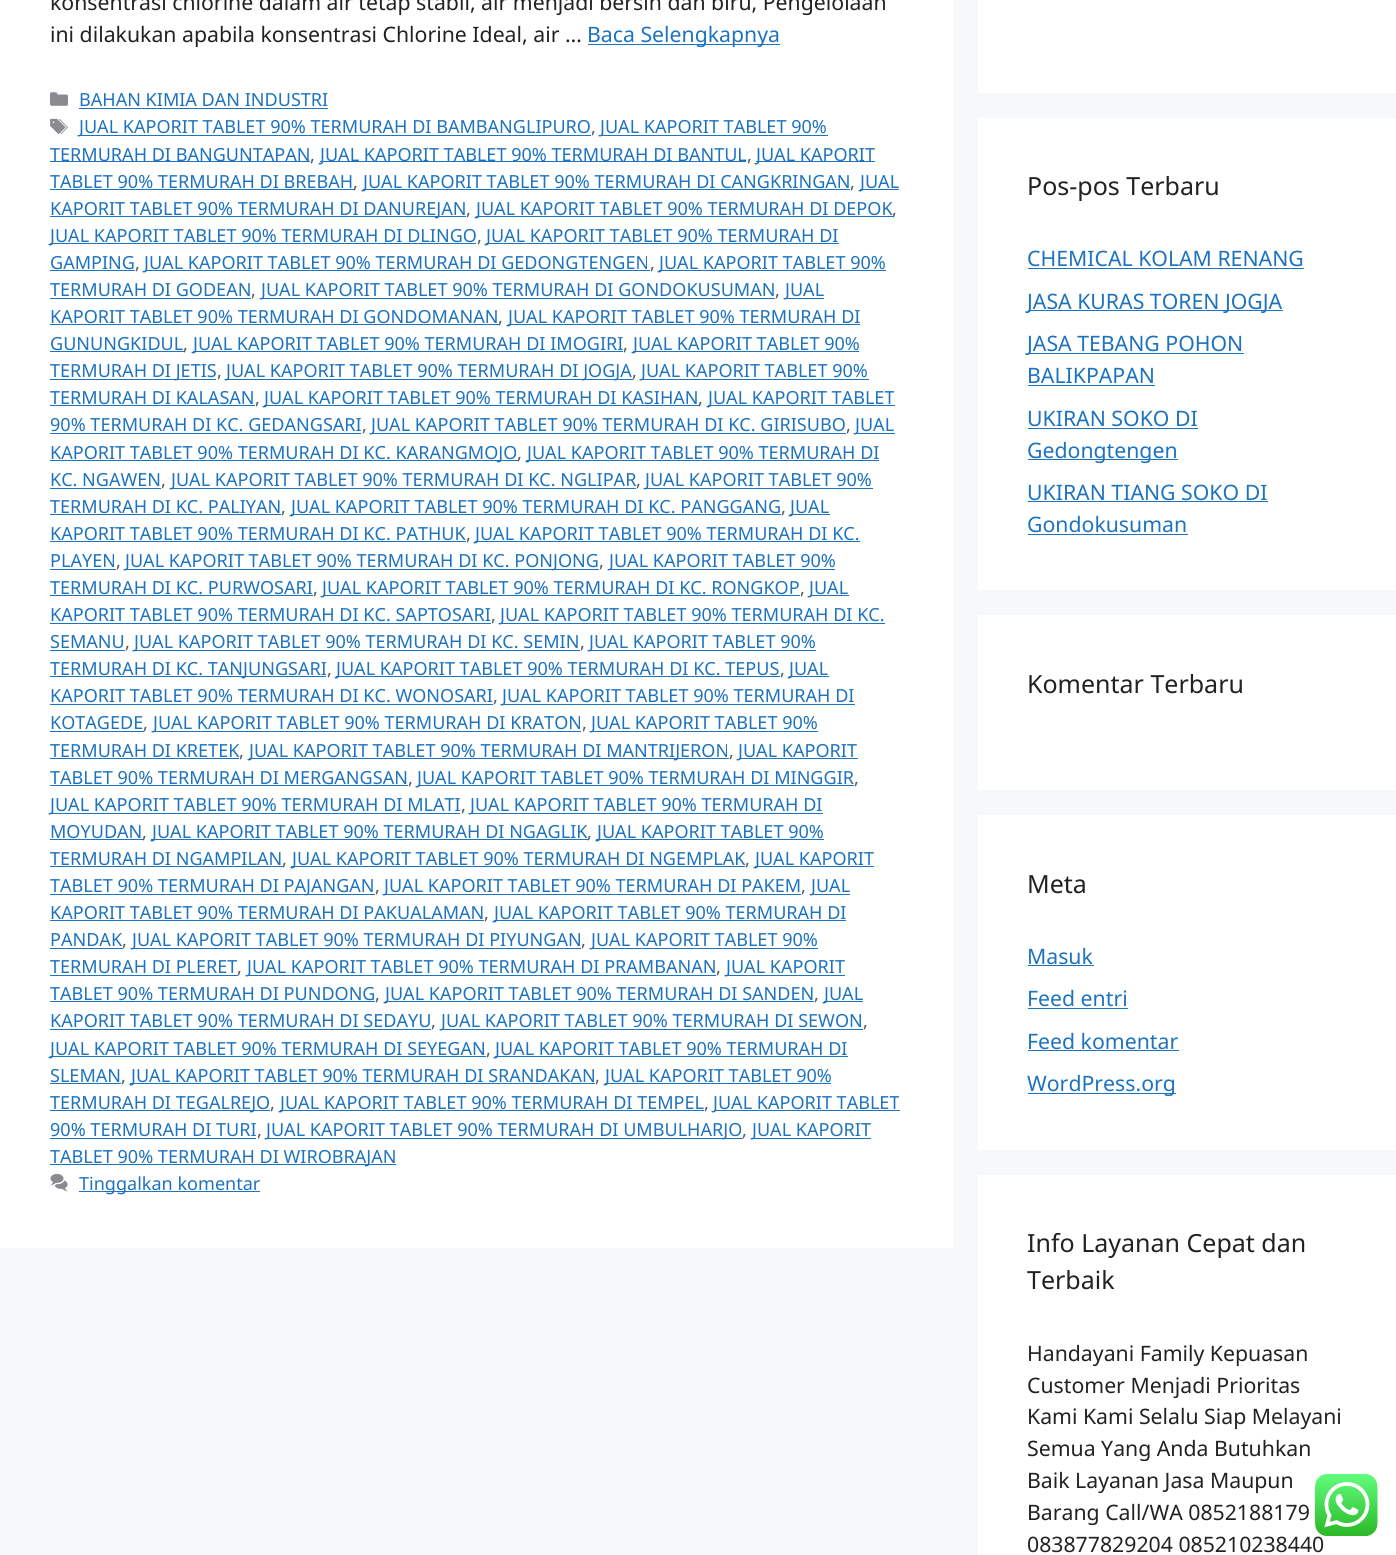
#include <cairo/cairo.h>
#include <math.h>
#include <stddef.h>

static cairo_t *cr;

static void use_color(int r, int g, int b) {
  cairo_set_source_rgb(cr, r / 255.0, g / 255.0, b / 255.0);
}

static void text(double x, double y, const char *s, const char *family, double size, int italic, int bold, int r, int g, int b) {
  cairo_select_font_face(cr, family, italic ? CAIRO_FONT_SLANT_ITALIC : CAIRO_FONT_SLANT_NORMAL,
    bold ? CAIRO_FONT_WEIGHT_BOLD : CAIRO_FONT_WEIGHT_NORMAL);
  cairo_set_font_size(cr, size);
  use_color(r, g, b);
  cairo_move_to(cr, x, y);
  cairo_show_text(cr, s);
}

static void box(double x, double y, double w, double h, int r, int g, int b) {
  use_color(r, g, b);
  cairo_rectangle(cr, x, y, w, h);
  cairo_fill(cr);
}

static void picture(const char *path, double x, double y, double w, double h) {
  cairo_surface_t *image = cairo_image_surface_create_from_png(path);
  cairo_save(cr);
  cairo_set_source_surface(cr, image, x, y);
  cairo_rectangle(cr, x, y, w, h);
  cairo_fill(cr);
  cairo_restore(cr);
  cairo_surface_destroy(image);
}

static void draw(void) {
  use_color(247, 248, 249);
  cairo_paint(cr);
  box(0, 0, 953, 1248, 255, 255, 255);
  box(588, 44, 192, 1, 30, 115, 190);
  picture("img_01.png", 50, 92, 18, 14);
  box(79, 108, 249, 1, 30, 115, 190);
  picture("img_02.png", 50, 118, 18, 16);
  box(79, 135, 512, 1, 30, 115, 190);
  box(600, 135, 228, 1, 30, 115, 190);
  box(50, 161, 260, 1, 30, 115, 190);
  box(320, 161, 426, 1, 30, 115, 190);
  box(756, 161, 119, 1, 30, 115, 190);
  box(50, 189, 304, 1, 30, 115, 190);
  box(363, 189, 487, 1, 30, 115, 190);
  box(860, 189, 39, 1, 30, 115, 190);
  box(50, 216, 416, 1, 30, 115, 190);
  box(476, 216, 417, 1, 30, 115, 190);
  box(50, 243, 426, 1, 30, 115, 190);
  box(486, 243, 353, 1, 30, 115, 190);
  box(50, 270, 85, 1, 30, 115, 190);
  box(145, 270, 505, 1, 30, 115, 190);
  box(659, 270, 227, 1, 30, 115, 190);
  box(50, 298, 201, 1, 30, 115, 190);
  box(261, 298, 514, 1, 30, 115, 190);
  box(785, 298, 39, 1, 30, 115, 190);
  box(50, 324, 449, 1, 30, 115, 190);
  box(508, 324, 352, 1, 30, 115, 190);
  box(50, 351, 134, 1, 30, 115, 190);
  box(193, 351, 430, 1, 30, 115, 190);
  box(633, 351, 226, 1, 30, 115, 190);
  box(50, 379, 166, 1, 30, 115, 190);
  box(226, 379, 407, 1, 30, 115, 190);
  box(641, 379, 228, 1, 30, 115, 190);
  box(50, 405, 205, 1, 30, 115, 190);
  box(264, 405, 435, 1, 30, 115, 190);
  box(708, 405, 187, 1, 30, 115, 190);
  box(50, 433, 311, 1, 30, 115, 190);
  box(371, 433, 475, 1, 30, 115, 190);
  box(855, 433, 40, 1, 30, 115, 190);
  box(50, 460, 468, 1, 30, 115, 190);
  box(526, 460, 353, 1, 30, 115, 190);
  box(50, 488, 111, 1, 30, 115, 190);
  box(170, 488, 466, 1, 30, 115, 190);
  box(645, 488, 228, 1, 30, 115, 190);
  box(50, 514, 231, 1, 30, 115, 190);
  box(291, 514, 490, 1, 30, 115, 190);
  box(790, 514, 40, 1, 30, 115, 190);
  box(50, 541, 416, 1, 30, 115, 190);
  box(475, 541, 385, 1, 30, 115, 190);
  box(50, 569, 66, 1, 30, 115, 190);
  box(125, 569, 474, 1, 30, 115, 190);
  box(609, 569, 226, 1, 30, 115, 190);
  box(50, 595, 263, 1, 30, 115, 190);
  box(323, 595, 477, 1, 30, 115, 190);
  box(810, 595, 39, 1, 30, 115, 190);
  box(50, 623, 441, 1, 30, 115, 190);
  box(500, 623, 385, 1, 30, 115, 190);
  box(50, 650, 75, 1, 30, 115, 190);
  box(134, 650, 446, 1, 30, 115, 190);
  box(589, 650, 227, 1, 30, 115, 190);
  box(50, 676, 276, 1, 30, 115, 190);
  box(336, 676, 444, 1, 30, 115, 190);
  box(789, 676, 40, 1, 30, 115, 190);
  box(50, 704, 443, 1, 30, 115, 190);
  box(503, 704, 352, 1, 30, 115, 190);
  box(50, 731, 94, 1, 30, 115, 190);
  box(153, 731, 428, 1, 30, 115, 190);
  box(591, 731, 227, 1, 30, 115, 190);
  box(50, 758, 189, 1, 30, 115, 190);
  box(249, 758, 480, 1, 30, 115, 190);
  box(739, 758, 119, 1, 30, 115, 190);
  box(50, 785, 358, 1, 30, 115, 190);
  box(418, 785, 436, 1, 30, 115, 190);
  box(50, 813, 410, 1, 30, 115, 190);
  box(470, 813, 353, 1, 30, 115, 190);
  box(50, 839, 93, 1, 30, 115, 190);
  box(151, 839, 437, 1, 30, 115, 190);
  box(596, 839, 228, 1, 30, 115, 190);
  box(50, 866, 233, 1, 30, 115, 190);
  box(291, 866, 454, 1, 30, 115, 190);
  box(755, 866, 119, 1, 30, 115, 190);
  box(50, 894, 325, 1, 30, 115, 190);
  box(384, 894, 417, 1, 30, 115, 190);
  box(811, 894, 39, 1, 30, 115, 190);
  box(50, 920, 434, 1, 30, 115, 190);
  box(494, 920, 352, 1, 30, 115, 190);
  box(50, 948, 73, 1, 30, 115, 190);
  box(131, 948, 450, 1, 30, 115, 190);
  box(591, 948, 227, 1, 30, 115, 190);
  box(50, 975, 188, 1, 30, 115, 190);
  box(248, 975, 468, 1, 30, 115, 190);
  box(726, 975, 119, 1, 30, 115, 190);
  box(50, 1001, 325, 1, 30, 115, 190);
  box(385, 1001, 429, 1, 30, 115, 190);
  box(824, 1001, 39, 1, 30, 115, 190);
  box(50, 1029, 381, 1, 30, 115, 190);
  box(441, 1029, 422, 1, 30, 115, 190);
  box(50, 1056, 436, 1, 30, 115, 190);
  box(495, 1056, 353, 1, 30, 115, 190);
  box(50, 1083, 71, 1, 30, 115, 190);
  box(130, 1083, 465, 1, 30, 115, 190);
  box(605, 1083, 226, 1, 30, 115, 190);
  box(50, 1110, 220, 1, 30, 115, 190);
  box(280, 1110, 424, 1, 30, 115, 190);
  box(714, 1110, 186, 1, 30, 115, 190);
  box(50, 1138, 206, 1, 30, 115, 190);
  box(266, 1138, 477, 1, 30, 115, 190);
  box(751, 1138, 120, 1, 30, 115, 190);
  box(50, 1164, 346, 1, 30, 115, 190);
  picture("img_03.png", 50, 1174, 18, 18);
  box(79, 1191, 181, 1, 30, 115, 190);
  box(978, 0, 418, 93, 255, 255, 255);
  box(978, 118, 418, 472, 255, 255, 255);
  box(1028, 268, 276, 1, 30, 115, 190);
  box(1028, 310, 255, 1, 30, 115, 190);
  box(1028, 353, 216, 1, 30, 115, 190);
  box(1028, 385, 127, 1, 30, 115, 190);
  box(1028, 428, 170, 1, 30, 115, 190);
  box(1028, 459, 150, 1, 30, 115, 190);
  box(1028, 501, 240, 1, 30, 115, 190);
  box(1028, 534, 160, 1, 30, 115, 190);
  box(978, 615, 418, 175, 255, 255, 255);
  box(978, 815, 418, 335, 255, 255, 255);
  box(1028, 965, 66, 1, 30, 115, 190);
  box(1028, 1008, 100, 1, 30, 115, 190);
  box(1028, 1050, 151, 1, 30, 115, 190);
  box(1028, 1093, 148, 1, 30, 115, 190);
  box(978, 1175, 418, 380, 255, 255, 255);
  picture("img_04.png", 1315, 1474, 63, 62);
  text(50, 10, "konsentrasi chlorine dalam air tetap stabil, air menjadi bersih dan biru, Pengelolaan", "Noto Sans", 21.25, 0, 0, 34, 34, 34);
  text(50, 42, "ini dilakukan apabila konsentrasi Chlorine Ideal, air …", "Noto Sans", 21.25, 0, 0, 34, 34, 34);
  text(587, 42, "Baca Selengkapnya", "Noto Sans", 21.25, 0, 0, 30, 115, 190);
  text(79, 106, "BAHAN KIMIA DAN INDUSTRI", "Noto Sans", 18.05, 0, 0, 30, 115, 190);
  text(79, 133, "JUAL KAPORIT TABLET 90% TERMURAH DI BAMBANGLIPURO", "Noto Sans", 18.05, 0, 0, 30, 115, 190);
  text(591, 133, ",", "Noto Sans", 18.05, 0, 0, 87, 87, 96);
  text(600, 133, "JUAL KAPORIT TABLET 90%", "Noto Sans", 18.05, 0, 0, 30, 115, 190);
  text(50, 161, "TERMURAH DI BANGUNTAPAN", "Noto Sans", 18.05, 0, 0, 30, 115, 190);
  text(310, 161, ",", "Noto Sans", 18.05, 0, 0, 87, 87, 96);
  text(320, 161, "JUAL KAPORIT TABLET 90% TERMURAH DI BANTUL", "Noto Sans", 18.05, 0, 0, 30, 115, 190);
  text(747, 161, ",", "Noto Sans", 18.05, 0, 0, 87, 87, 96);
  text(756, 161, "JUAL KAPORIT", "Noto Sans", 18.05, 0, 0, 30, 115, 190);
  text(50, 188, "TABLET 90% TERMURAH DI BREBAH", "Noto Sans", 18.05, 0, 0, 30, 115, 190);
  text(353, 188, ",", "Noto Sans", 18.05, 0, 0, 87, 87, 96);
  text(363, 188, "JUAL KAPORIT TABLET 90% TERMURAH DI CANGKRINGAN", "Noto Sans", 18.05, 0, 0, 30, 115, 190);
  text(850, 188, ",", "Noto Sans", 18.05, 0, 0, 87, 87, 96);
  text(860, 188, "JUAL", "Noto Sans", 18.05, 0, 0, 30, 115, 190);
  text(50, 215, "KAPORIT TABLET 90% TERMURAH DI DANUREJAN", "Noto Sans", 18.05, 0, 0, 30, 115, 190);
  text(466, 215, ",", "Noto Sans", 18.05, 0, 0, 87, 87, 96);
  text(476, 215, "JUAL KAPORIT TABLET 90% TERMURAH DI DEPOK", "Noto Sans", 18.05, 0, 0, 30, 115, 190);
  text(892, 215, ",", "Noto Sans", 18.05, 0, 0, 87, 87, 96);
  text(50, 242, "JUAL KAPORIT TABLET 90% TERMURAH DI DLINGO", "Noto Sans", 18.05, 0, 0, 30, 115, 190);
  text(477, 242, ",", "Noto Sans", 18.05, 0, 0, 87, 87, 96);
  text(486, 242, "JUAL KAPORIT TABLET 90% TERMURAH DI", "Noto Sans", 18.05, 0, 0, 30, 115, 190);
  text(50, 269, "GAMPING", "Noto Sans", 18.05, 0, 0, 30, 115, 190);
  text(135, 269, ",", "Noto Sans", 18.05, 0, 0, 87, 87, 96);
  text(144, 269, "JUAL KAPORIT TABLET 90% TERMURAH DI GEDONGTENGEN", "Noto Sans", 18.05, 0, 0, 30, 115, 190);
  text(650, 269, ",", "Noto Sans", 18.05, 0, 0, 87, 87, 96);
  text(659, 269, "JUAL KAPORIT TABLET 90%", "Noto Sans", 18.05, 0, 0, 30, 115, 190);
  text(50, 296, "TERMURAH DI GODEAN", "Noto Sans", 18.05, 0, 0, 30, 115, 190);
  text(251, 296, ",", "Noto Sans", 18.05, 0, 0, 87, 87, 96);
  text(261, 296, "JUAL KAPORIT TABLET 90% TERMURAH DI GONDOKUSUMAN", "Noto Sans", 18.05, 0, 0, 30, 115, 190);
  text(775, 296, ",", "Noto Sans", 18.05, 0, 0, 87, 87, 96);
  text(785, 296, "JUAL", "Noto Sans", 18.05, 0, 0, 30, 115, 190);
  text(50, 323, "KAPORIT TABLET 90% TERMURAH DI GONDOMANAN", "Noto Sans", 18.05, 0, 0, 30, 115, 190);
  text(498, 323, ",", "Noto Sans", 18.05, 0, 0, 87, 87, 96);
  text(508, 323, "JUAL KAPORIT TABLET 90% TERMURAH DI", "Noto Sans", 18.05, 0, 0, 30, 115, 190);
  text(50, 350, "GUNUNGKIDUL", "Noto Sans", 18.05, 0, 0, 30, 115, 190);
  text(183, 350, ",", "Noto Sans", 18.05, 0, 0, 87, 87, 96);
  text(193, 350, "JUAL KAPORIT TABLET 90% TERMURAH DI IMOGIRI", "Noto Sans", 18.05, 0, 0, 30, 115, 190);
  text(623, 350, ",", "Noto Sans", 18.05, 0, 0, 87, 87, 96);
  text(633, 350, "JUAL KAPORIT TABLET 90%", "Noto Sans", 18.05, 0, 0, 30, 115, 190);
  text(50, 377, "TERMURAH DI JETIS", "Noto Sans", 18.05, 0, 0, 30, 115, 190);
  text(217, 377, ",", "Noto Sans", 18.05, 0, 0, 87, 87, 96);
  text(226, 377, "JUAL KAPORIT TABLET 90% TERMURAH DI JOGJA", "Noto Sans", 18.05, 0, 0, 30, 115, 190);
  text(632, 377, ",", "Noto Sans", 18.05, 0, 0, 87, 87, 96);
  text(641, 377, "JUAL KAPORIT TABLET 90%", "Noto Sans", 18.05, 0, 0, 30, 115, 190);
  text(50, 404, "TERMURAH DI KALASAN", "Noto Sans", 18.05, 0, 0, 30, 115, 190);
  text(255, 404, ",", "Noto Sans", 18.05, 0, 0, 87, 87, 96);
  text(264, 404, "JUAL KAPORIT TABLET 90% TERMURAH DI KASIHAN", "Noto Sans", 18.05, 0, 0, 30, 115, 190);
  text(698, 404, ",", "Noto Sans", 18.05, 0, 0, 87, 87, 96);
  text(708, 404, "JUAL KAPORIT TABLET", "Noto Sans", 18.05, 0, 0, 30, 115, 190);
  text(50, 431, "90% TERMURAH DI KC. GEDANGSARI", "Noto Sans", 18.05, 0, 0, 30, 115, 190);
  text(362, 431, ",", "Noto Sans", 18.05, 0, 0, 87, 87, 96);
  text(371, 431, "JUAL KAPORIT TABLET 90% TERMURAH DI KC. GIRISUBO", "Noto Sans", 18.05, 0, 0, 30, 115, 190);
  text(846, 431, ",", "Noto Sans", 18.05, 0, 0, 87, 87, 96);
  text(855, 431, "JUAL", "Noto Sans", 18.05, 0, 0, 30, 115, 190);
  text(50, 459, "KAPORIT TABLET 90% TERMURAH DI KC. KARANGMOJO", "Noto Sans", 18.05, 0, 0, 30, 115, 190);
  text(517, 459, ",", "Noto Sans", 18.05, 0, 0, 87, 87, 96);
  text(527, 459, "JUAL KAPORIT TABLET 90% TERMURAH DI", "Noto Sans", 18.05, 0, 0, 30, 115, 190);
  text(50, 486, "KC. NGAWEN", "Noto Sans", 18.05, 0, 0, 30, 115, 190);
  text(161, 486, ",", "Noto Sans", 18.05, 0, 0, 87, 87, 96);
  text(171, 486, "JUAL KAPORIT TABLET 90% TERMURAH DI KC. NGLIPAR", "Noto Sans", 18.05, 0, 0, 30, 115, 190);
  text(636, 486, ",", "Noto Sans", 18.05, 0, 0, 87, 87, 96);
  text(645, 486, "JUAL KAPORIT TABLET 90%", "Noto Sans", 18.05, 0, 0, 30, 115, 190);
  text(50, 513, "TERMURAH DI KC. PALIYAN", "Noto Sans", 18.05, 0, 0, 30, 115, 190);
  text(281, 513, ",", "Noto Sans", 18.05, 0, 0, 87, 87, 96);
  text(291, 513, "JUAL KAPORIT TABLET 90% TERMURAH DI KC. PANGGANG", "Noto Sans", 18.05, 0, 0, 30, 115, 190);
  text(781, 513, ",", "Noto Sans", 18.05, 0, 0, 87, 87, 96);
  text(790, 513, "JUAL", "Noto Sans", 18.05, 0, 0, 30, 115, 190);
  text(50, 540, "KAPORIT TABLET 90% TERMURAH DI KC. PATHUK", "Noto Sans", 18.05, 0, 0, 30, 115, 190);
  text(466, 540, ",", "Noto Sans", 18.05, 0, 0, 87, 87, 96);
  text(475, 540, "JUAL KAPORIT TABLET 90% TERMURAH DI KC.", "Noto Sans", 18.05, 0, 0, 30, 115, 190);
  text(50, 567, "PLAYEN", "Noto Sans", 18.05, 0, 0, 30, 115, 190);
  text(116, 567, ",", "Noto Sans", 18.05, 0, 0, 87, 87, 96);
  text(125, 567, "JUAL KAPORIT TABLET 90% TERMURAH DI KC. PONJONG", "Noto Sans", 18.05, 0, 0, 30, 115, 190);
  text(599, 567, ",", "Noto Sans", 18.05, 0, 0, 87, 87, 96);
  text(609, 567, "JUAL KAPORIT TABLET 90%", "Noto Sans", 18.05, 0, 0, 30, 115, 190);
  text(50, 594, "TERMURAH DI KC. PURWOSARI", "Noto Sans", 18.05, 0, 0, 30, 115, 190);
  text(313, 594, ",", "Noto Sans", 18.05, 0, 0, 87, 87, 96);
  text(322, 594, "JUAL KAPORIT TABLET 90% TERMURAH DI KC. RONGKOP", "Noto Sans", 18.05, 0, 0, 30, 115, 190);
  text(800, 594, ",", "Noto Sans", 18.05, 0, 0, 87, 87, 96);
  text(809, 594, "JUAL", "Noto Sans", 18.05, 0, 0, 30, 115, 190);
  text(50, 621, "KAPORIT TABLET 90% TERMURAH DI KC. SAPTOSARI", "Noto Sans", 18.05, 0, 0, 30, 115, 190);
  text(491, 621, ",", "Noto Sans", 18.05, 0, 0, 87, 87, 96);
  text(500, 621, "JUAL KAPORIT TABLET 90% TERMURAH DI KC.", "Noto Sans", 18.05, 0, 0, 30, 115, 190);
  text(50, 648, "SEMANU", "Noto Sans", 18.05, 0, 0, 30, 115, 190);
  text(125, 648, ",", "Noto Sans", 18.05, 0, 0, 87, 87, 96);
  text(134, 648, "JUAL KAPORIT TABLET 90% TERMURAH DI KC. SEMIN", "Noto Sans", 18.05, 0, 0, 30, 115, 190);
  text(580, 648, ",", "Noto Sans", 18.05, 0, 0, 87, 87, 96);
  text(589, 648, "JUAL KAPORIT TABLET 90%", "Noto Sans", 18.05, 0, 0, 30, 115, 190);
  text(50, 675, "TERMURAH DI KC. TANJUNGSARI", "Noto Sans", 18.05, 0, 0, 30, 115, 190);
  text(327, 675, ",", "Noto Sans", 18.05, 0, 0, 87, 87, 96);
  text(336, 675, "JUAL KAPORIT TABLET 90% TERMURAH DI KC. TEPUS", "Noto Sans", 18.05, 0, 0, 30, 115, 190);
  text(780, 675, ",", "Noto Sans", 18.05, 0, 0, 87, 87, 96);
  text(789, 675, "JUAL", "Noto Sans", 18.05, 0, 0, 30, 115, 190);
  text(50, 702, "KAPORIT TABLET 90% TERMURAH DI KC. WONOSARI", "Noto Sans", 18.05, 0, 0, 30, 115, 190);
  text(493, 702, ",", "Noto Sans", 18.05, 0, 0, 87, 87, 96);
  text(502, 702, "JUAL KAPORIT TABLET 90% TERMURAH DI", "Noto Sans", 18.05, 0, 0, 30, 115, 190);
  text(50, 729, "KOTAGEDE", "Noto Sans", 18.05, 0, 0, 30, 115, 190);
  text(143, 729, ",", "Noto Sans", 18.05, 0, 0, 87, 87, 96);
  text(153, 729, "JUAL KAPORIT TABLET 90% TERMURAH DI KRATON", "Noto Sans", 18.05, 0, 0, 30, 115, 190);
  text(582, 729, ",", "Noto Sans", 18.05, 0, 0, 87, 87, 96);
  text(591, 729, "JUAL KAPORIT TABLET 90%", "Noto Sans", 18.05, 0, 0, 30, 115, 190);
  text(50, 757, "TERMURAH DI KRETEK", "Noto Sans", 18.05, 0, 0, 30, 115, 190);
  text(239, 757, ",", "Noto Sans", 18.05, 0, 0, 87, 87, 96);
  text(249, 757, "JUAL KAPORIT TABLET 90% TERMURAH DI MANTRIJERON", "Noto Sans", 18.05, 0, 0, 30, 115, 190);
  text(729, 757, ",", "Noto Sans", 18.05, 0, 0, 87, 87, 96);
  text(738, 757, "JUAL KAPORIT", "Noto Sans", 18.05, 0, 0, 30, 115, 190);
  text(50, 784, "TABLET 90% TERMURAH DI MERGANGSAN", "Noto Sans", 18.05, 0, 0, 30, 115, 190);
  text(408, 784, ",", "Noto Sans", 18.05, 0, 0, 87, 87, 96);
  text(417, 784, "JUAL KAPORIT TABLET 90% TERMURAH DI MINGGIR", "Noto Sans", 18.05, 0, 0, 30, 115, 190);
  text(854, 784, ",", "Noto Sans", 18.05, 0, 0, 87, 87, 96);
  text(50, 811, "JUAL KAPORIT TABLET 90% TERMURAH DI MLATI", "Noto Sans", 18.05, 0, 0, 30, 115, 190);
  text(461, 811, ",", "Noto Sans", 18.05, 0, 0, 87, 87, 96);
  text(470, 811, "JUAL KAPORIT TABLET 90% TERMURAH DI", "Noto Sans", 18.05, 0, 0, 30, 115, 190);
  text(50, 838, "MOYUDAN", "Noto Sans", 18.05, 0, 0, 30, 115, 190);
  text(142, 838, ",", "Noto Sans", 18.05, 0, 0, 87, 87, 96);
  text(152, 838, "JUAL KAPORIT TABLET 90% TERMURAH DI NGAGLIK", "Noto Sans", 18.05, 0, 0, 30, 115, 190);
  text(587, 838, ",", "Noto Sans", 18.05, 0, 0, 87, 87, 96);
  text(597, 838, "JUAL KAPORIT TABLET 90%", "Noto Sans", 18.05, 0, 0, 30, 115, 190);
  text(50, 865, "TERMURAH DI NGAMPILAN", "Noto Sans", 18.05, 0, 0, 30, 115, 190);
  text(282, 865, ",", "Noto Sans", 18.05, 0, 0, 87, 87, 96);
  text(292, 865, "JUAL KAPORIT TABLET 90% TERMURAH DI NGEMPLAK", "Noto Sans", 18.05, 0, 0, 30, 115, 190);
  text(745, 865, ",", "Noto Sans", 18.05, 0, 0, 87, 87, 96);
  text(755, 865, "JUAL KAPORIT", "Noto Sans", 18.05, 0, 0, 30, 115, 190);
  text(50, 892, "TABLET 90% TERMURAH DI PAJANGAN", "Noto Sans", 18.05, 0, 0, 30, 115, 190);
  text(375, 892, ",", "Noto Sans", 18.05, 0, 0, 87, 87, 96);
  text(384, 892, "JUAL KAPORIT TABLET 90% TERMURAH DI PAKEM", "Noto Sans", 18.05, 0, 0, 30, 115, 190);
  text(801, 892, ",", "Noto Sans", 18.05, 0, 0, 87, 87, 96);
  text(811, 892, "JUAL", "Noto Sans", 18.05, 0, 0, 30, 115, 190);
  text(50, 919, "KAPORIT TABLET 90% TERMURAH DI PAKUALAMAN", "Noto Sans", 18.05, 0, 0, 30, 115, 190);
  text(484, 919, ",", "Noto Sans", 18.05, 0, 0, 87, 87, 96);
  text(494, 919, "JUAL KAPORIT TABLET 90% TERMURAH DI", "Noto Sans", 18.05, 0, 0, 30, 115, 190);
  text(50, 946, "PANDAK", "Noto Sans", 18.05, 0, 0, 30, 115, 190);
  text(122, 946, ",", "Noto Sans", 18.05, 0, 0, 87, 87, 96);
  text(132, 946, "JUAL KAPORIT TABLET 90% TERMURAH DI PIYUNGAN", "Noto Sans", 18.05, 0, 0, 30, 115, 190);
  text(581, 946, ",", "Noto Sans", 18.05, 0, 0, 87, 87, 96);
  text(591, 946, "JUAL KAPORIT TABLET 90%", "Noto Sans", 18.05, 0, 0, 30, 115, 190);
  text(50, 973, "TERMURAH DI PLERET", "Noto Sans", 18.05, 0, 0, 30, 115, 190);
  text(237, 973, ",", "Noto Sans", 18.05, 0, 0, 87, 87, 96);
  text(247, 973, "JUAL KAPORIT TABLET 90% TERMURAH DI PRAMBANAN", "Noto Sans", 18.05, 0, 0, 30, 115, 190);
  text(716, 973, ",", "Noto Sans", 18.05, 0, 0, 87, 87, 96);
  text(726, 973, "JUAL KAPORIT", "Noto Sans", 18.05, 0, 0, 30, 115, 190);
  text(50, 1000, "TABLET 90% TERMURAH DI PUNDONG", "Noto Sans", 18.05, 0, 0, 30, 115, 190);
  text(375, 1000, ",", "Noto Sans", 18.05, 0, 0, 87, 87, 96);
  text(385, 1000, "JUAL KAPORIT TABLET 90% TERMURAH DI SANDEN", "Noto Sans", 18.05, 0, 0, 30, 115, 190);
  text(814, 1000, ",", "Noto Sans", 18.05, 0, 0, 87, 87, 96);
  text(824, 1000, "JUAL", "Noto Sans", 18.05, 0, 0, 30, 115, 190);
  text(50, 1027, "KAPORIT TABLET 90% TERMURAH DI SEDAYU", "Noto Sans", 18.05, 0, 0, 30, 115, 190);
  text(431, 1027, ",", "Noto Sans", 18.05, 0, 0, 87, 87, 96);
  text(441, 1027, "JUAL KAPORIT TABLET 90% TERMURAH DI SEWON", "Noto Sans", 18.05, 0, 0, 30, 115, 190);
  text(863, 1027, ",", "Noto Sans", 18.05, 0, 0, 87, 87, 96);
  text(50, 1055, "JUAL KAPORIT TABLET 90% TERMURAH DI SEYEGAN", "Noto Sans", 18.05, 0, 0, 30, 115, 190);
  text(486, 1055, ",", "Noto Sans", 18.05, 0, 0, 87, 87, 96);
  text(495, 1055, "JUAL KAPORIT TABLET 90% TERMURAH DI", "Noto Sans", 18.05, 0, 0, 30, 115, 190);
  text(50, 1082, "SLEMAN", "Noto Sans", 18.05, 0, 0, 30, 115, 190);
  text(121, 1082, ",", "Noto Sans", 18.05, 0, 0, 87, 87, 96);
  text(131, 1082, "JUAL KAPORIT TABLET 90% TERMURAH DI SRANDAKAN", "Noto Sans", 18.05, 0, 0, 30, 115, 190);
  text(595, 1082, ",", "Noto Sans", 18.05, 0, 0, 87, 87, 96);
  text(605, 1082, "JUAL KAPORIT TABLET 90%", "Noto Sans", 18.05, 0, 0, 30, 115, 190);
  text(50, 1109, "TERMURAH DI TEGALREJO", "Noto Sans", 18.05, 0, 0, 30, 115, 190);
  text(270, 1109, ",", "Noto Sans", 18.05, 0, 0, 87, 87, 96);
  text(280, 1109, "JUAL KAPORIT TABLET 90% TERMURAH DI TEMPEL", "Noto Sans", 18.05, 0, 0, 30, 115, 190);
  text(704, 1109, ",", "Noto Sans", 18.05, 0, 0, 87, 87, 96);
  text(713, 1109, "JUAL KAPORIT TABLET", "Noto Sans", 18.05, 0, 0, 30, 115, 190);
  text(50, 1136, "90% TERMURAH DI TURI", "Noto Sans", 18.05, 0, 0, 30, 115, 190);
  text(257, 1136, ",", "Noto Sans", 18.05, 0, 0, 87, 87, 96);
  text(266, 1136, "JUAL KAPORIT TABLET 90% TERMURAH DI UMBULHARJO", "Noto Sans", 18.05, 0, 0, 30, 115, 190);
  text(742, 1136, ",", "Noto Sans", 18.05, 0, 0, 87, 87, 96);
  text(752, 1136, "JUAL KAPORIT", "Noto Sans", 18.05, 0, 0, 30, 115, 190);
  text(50, 1163, "TABLET 90% TERMURAH DI WIROBRAJAN", "Noto Sans", 18.05, 0, 0, 30, 115, 190);
  text(79, 1190, "Tinggalkan komentar", "Noto Sans", 18.05, 0, 0, 30, 115, 190);
  text(1027, 195, "Pos-pos Terbaru", "Noto Sans", 25, 0, 0, 34, 34, 34);
  text(1027, 266, "CHEMICAL KOLAM RENANG", "Noto Sans", 21.25, 0, 0, 30, 115, 190);
  text(1027, 309, "JASA KURAS TOREN JOGJA", "Noto Sans", 21.25, 0, 0, 30, 115, 190);
  text(1027, 351, "JASA TEBANG POHON", "Noto Sans", 21.25, 0, 0, 30, 115, 190);
  text(1027, 383, "BALIKPAPAN", "Noto Sans", 21.25, 0, 0, 30, 115, 190);
  text(1027, 426, "UKIRAN SOKO DI", "Noto Sans", 21.25, 0, 0, 30, 115, 190);
  text(1027, 458, "Gedongtengen", "Noto Sans", 21.25, 0, 0, 30, 115, 190);
  text(1027, 500, "UKIRAN TIANG SOKO DI", "Noto Sans", 21.25, 0, 0, 30, 115, 190);
  text(1027, 532, "Gondokusuman", "Noto Sans", 21.25, 0, 0, 30, 115, 190);
  text(1027, 693, "Komentar Terbaru", "Noto Sans", 25, 0, 0, 34, 34, 34);
  text(1027, 893, "Meta", "Noto Sans", 25, 0, 0, 34, 34, 34);
  text(1027, 964, "Masuk", "Noto Sans", 21.25, 0, 0, 30, 115, 190);
  text(1027, 1006, "Feed entri", "Noto Sans", 21.25, 0, 0, 30, 115, 190);
  text(1027, 1049, "Feed komentar", "Noto Sans", 21.25, 0, 0, 30, 115, 190);
  text(1027, 1091, "WordPress.org", "Noto Sans", 21.25, 0, 0, 30, 115, 190);
  text(1027, 1252, "Info Layanan Cepat dan", "Noto Sans", 25, 0, 0, 34, 34, 34);
  text(1027, 1289, "Terbaik", "Noto Sans", 25, 0, 0, 34, 34, 34);
  text(1027, 1361, "Handayani Family Kepuasan", "Noto Sans", 21.25, 0, 0, 34, 34, 34);
  text(1027, 1393, "Customer Menjadi Prioritas", "Noto Sans", 21.25, 0, 0, 34, 34, 34);
  text(1027, 1424, "Kami Kami Selalu Siap Melayani", "Noto Sans", 21.25, 0, 0, 34, 34, 34);
  text(1027, 1456, "Semua Yang Anda Butuhkan", "Noto Sans", 21.25, 0, 0, 34, 34, 34);
  text(1027, 1488, "Baik Layanan Jasa Maupun", "Noto Sans", 21.25, 0, 0, 34, 34, 34);
  text(1027, 1520, "Barang Call/WA 0852188179", "Noto Sans", 21.25, 0, 0, 34, 34, 34);
  text(1027, 1552, "083877829204 085210238440", "Noto Sans", 21.25, 0, 0, 34, 34, 34);
}

int main(void) {
  cairo_surface_t *surface = cairo_image_surface_create(CAIRO_FORMAT_RGB24, 1396, 1555);
  cr = cairo_create(surface);
  cairo_font_options_t *options = cairo_font_options_create();
  cairo_font_options_set_hint_metrics(options, CAIRO_HINT_METRICS_OFF);
  cairo_font_options_set_hint_style(options, CAIRO_HINT_STYLE_NONE);
  cairo_set_font_options(cr, options);
  cairo_set_miter_limit(cr, 4);
  draw();
  cairo_surface_write_to_png(surface, "out.png");
  cairo_font_options_destroy(options);
  cairo_destroy(cr);
  cairo_surface_destroy(surface);
  return 0;
}
